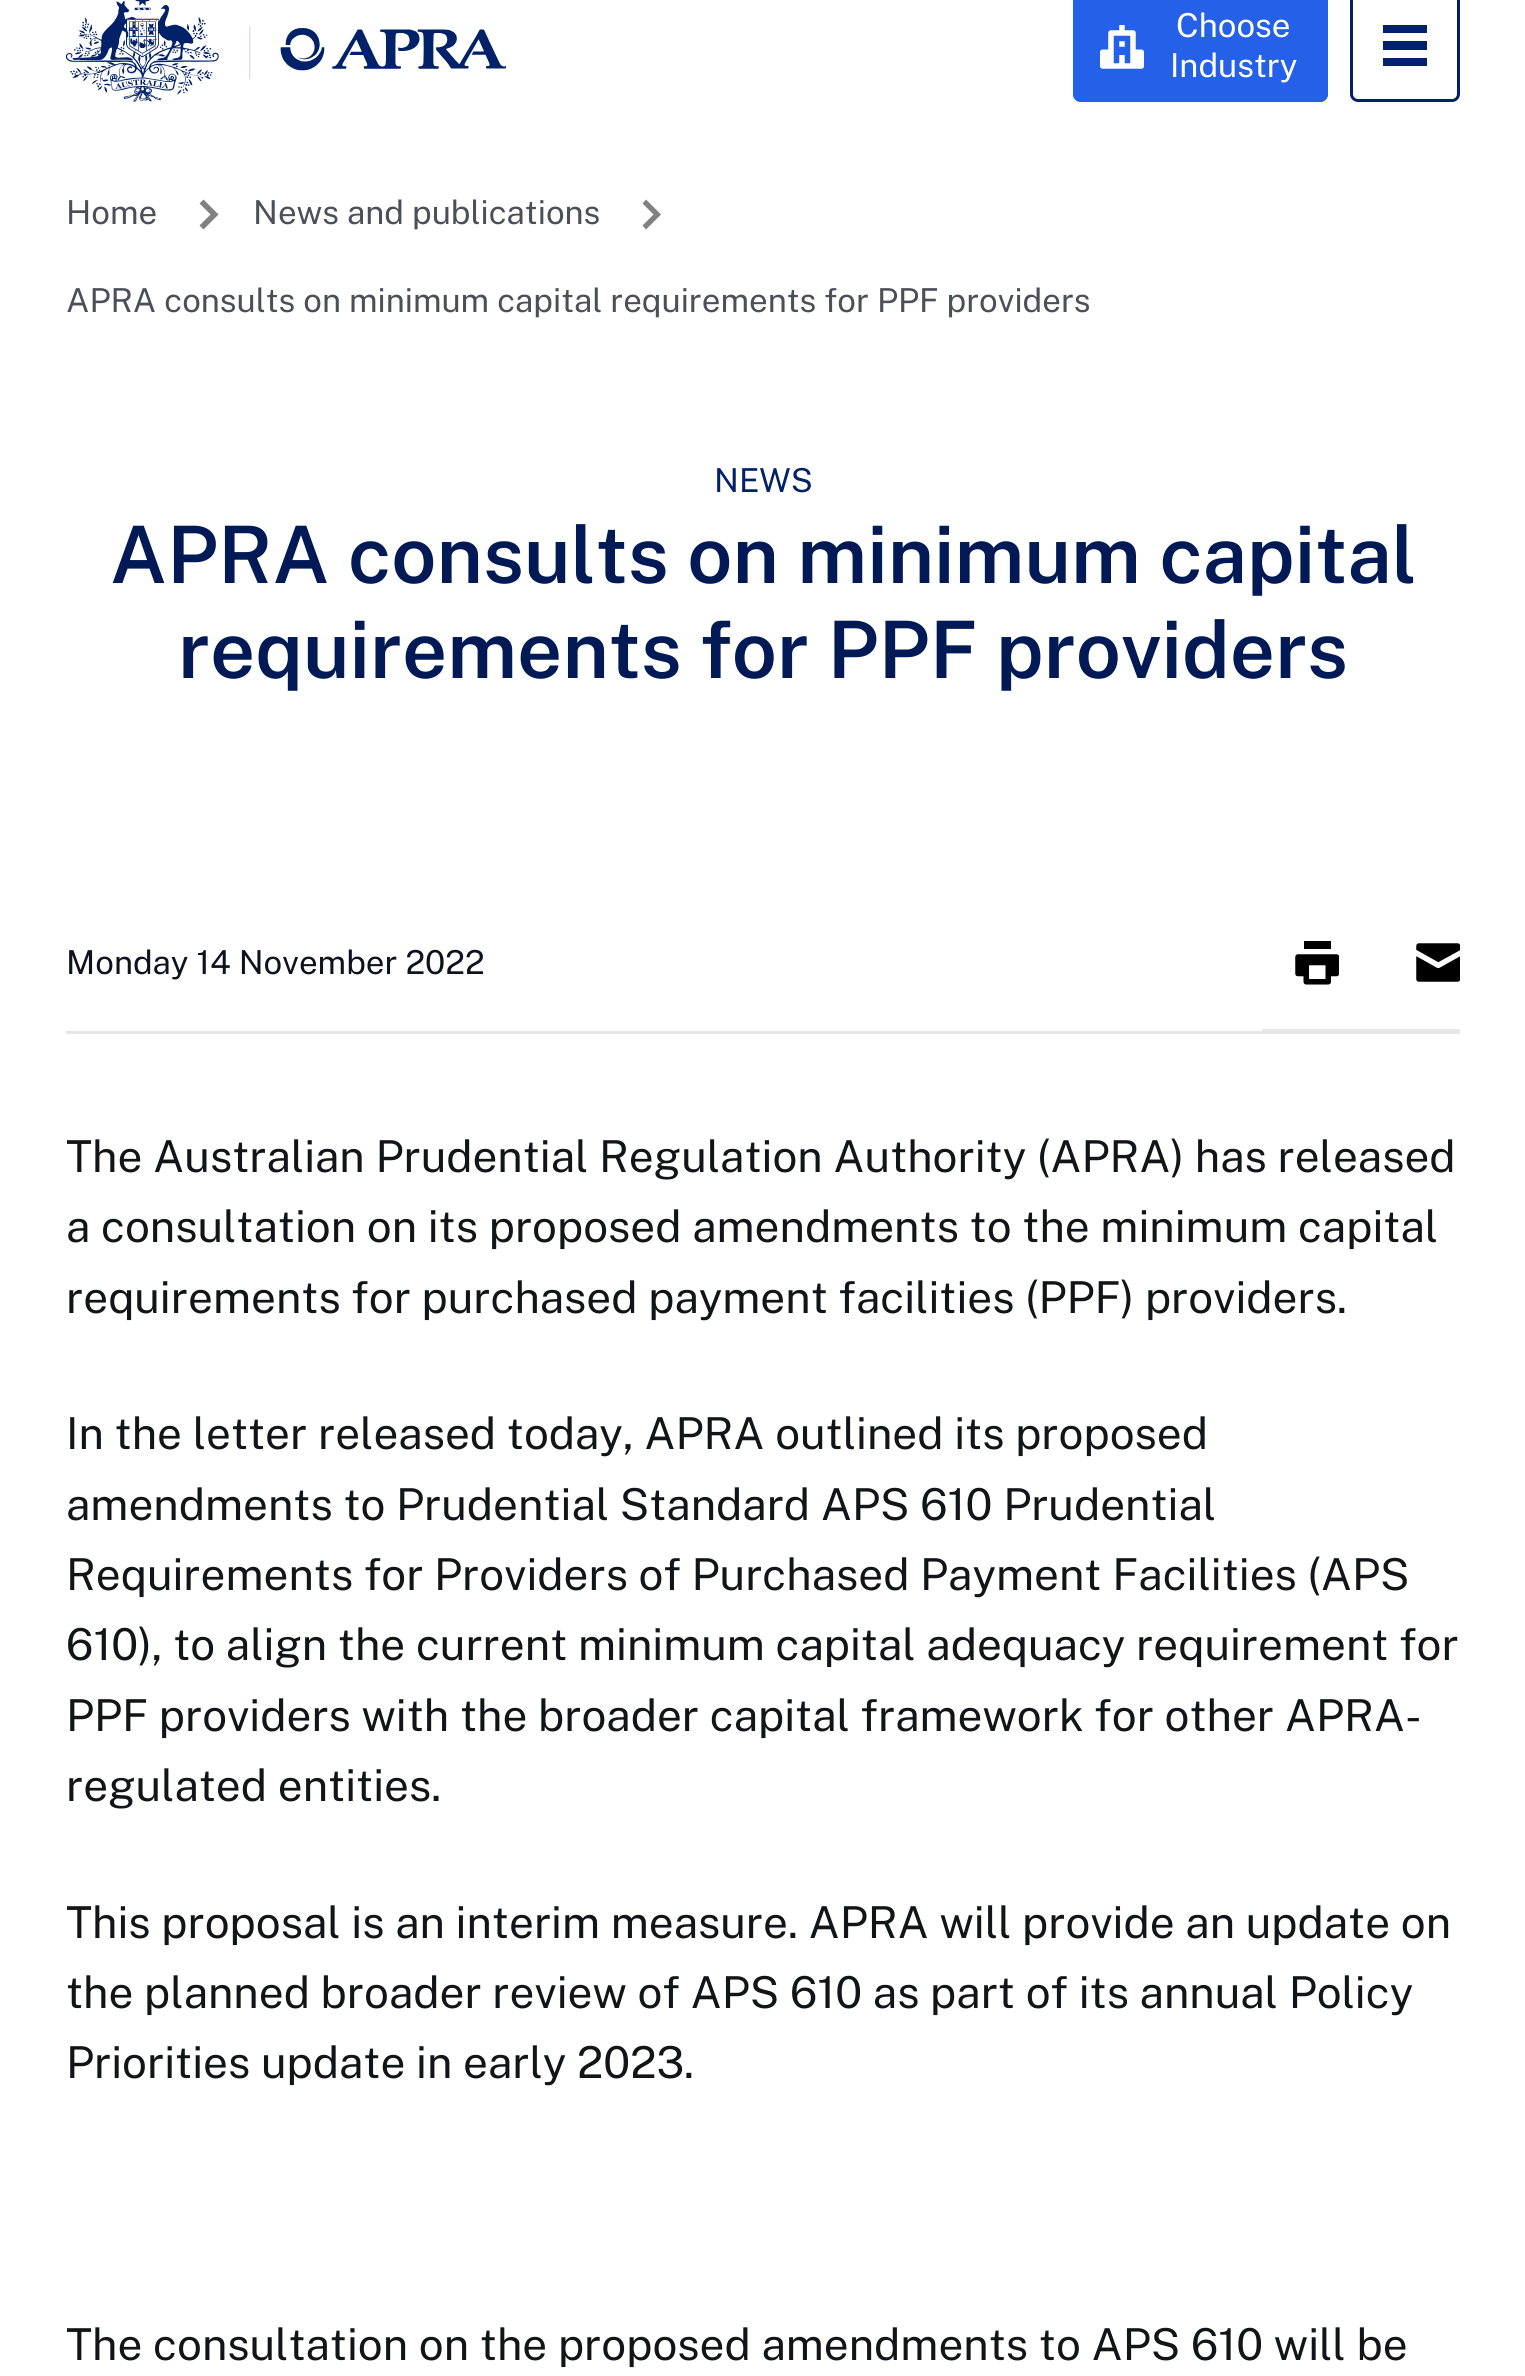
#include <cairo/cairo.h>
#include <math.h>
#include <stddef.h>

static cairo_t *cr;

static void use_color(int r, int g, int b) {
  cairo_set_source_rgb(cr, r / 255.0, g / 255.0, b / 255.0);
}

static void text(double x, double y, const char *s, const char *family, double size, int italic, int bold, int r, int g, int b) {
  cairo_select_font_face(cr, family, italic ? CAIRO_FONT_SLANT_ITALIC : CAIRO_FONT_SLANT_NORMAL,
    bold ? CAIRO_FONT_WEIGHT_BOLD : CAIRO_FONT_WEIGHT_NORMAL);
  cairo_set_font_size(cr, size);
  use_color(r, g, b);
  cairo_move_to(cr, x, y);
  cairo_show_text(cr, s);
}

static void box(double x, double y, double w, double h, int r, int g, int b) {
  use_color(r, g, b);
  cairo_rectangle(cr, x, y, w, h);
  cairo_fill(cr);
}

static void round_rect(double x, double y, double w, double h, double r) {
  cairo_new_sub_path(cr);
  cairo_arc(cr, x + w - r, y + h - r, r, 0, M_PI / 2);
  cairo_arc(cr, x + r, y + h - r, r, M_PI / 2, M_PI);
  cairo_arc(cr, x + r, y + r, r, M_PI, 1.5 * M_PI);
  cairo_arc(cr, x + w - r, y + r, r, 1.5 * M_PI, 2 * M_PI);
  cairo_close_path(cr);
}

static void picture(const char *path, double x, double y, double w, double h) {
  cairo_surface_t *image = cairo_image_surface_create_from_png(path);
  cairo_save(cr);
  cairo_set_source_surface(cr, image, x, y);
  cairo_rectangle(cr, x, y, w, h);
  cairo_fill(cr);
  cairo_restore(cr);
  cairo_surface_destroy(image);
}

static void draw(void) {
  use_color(255, 255, 255);
  cairo_paint(cr);
  picture("img_01.png", 66, 0, 440, 102);
  use_color(37, 97, 232);
  round_rect(1073, -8, 255, 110, 8);
  cairo_fill(cr);
  picture("img_02.png", 1100, 25, 44, 44);
  round_rect(1076, -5, 249, 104, 5);
  cairo_set_line_width(cr, 6);
  cairo_stroke(cr);
  use_color(1, 33, 105);
  cairo_new_path(cr);
  cairo_move_to(cr, 1383, 25);
  cairo_line_to(cr, 1427, 25);
  cairo_line_to(cr, 1427, 33);
  cairo_line_to(cr, 1383, 33);
  cairo_close_path(cr);
  cairo_move_to(cr, 1383, 41);
  cairo_line_to(cr, 1427, 41);
  cairo_line_to(cr, 1427, 50);
  cairo_line_to(cr, 1383, 50);
  cairo_close_path(cr);
  cairo_move_to(cr, 1383, 58);
  cairo_line_to(cr, 1427, 58);
  cairo_line_to(cr, 1427, 66);
  cairo_line_to(cr, 1383, 66);
  cairo_close_path(cr);
  cairo_fill(cr);
  round_rect(1351.5, -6.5, 107, 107, 6.5);
  cairo_set_line_width(cr, 3);
  cairo_stroke(cr);
  use_color(129, 129, 129);
  cairo_new_path(cr);
  cairo_move_to(cr, 203.5, 229.5);
  cairo_line_to(cr, 199.5, 225.5);
  cairo_line_to(cr, 210.5, 214.5);
  cairo_line_to(cr, 199.5, 203.5);
  cairo_line_to(cr, 203.5, 199.5);
  cairo_line_to(cr, 218.5, 214.5);
  cairo_close_path(cr);
  cairo_fill(cr);
  cairo_new_path(cr);
  cairo_move_to(cr, 646, 229.5);
  cairo_line_to(cr, 642.5, 225.5);
  cairo_line_to(cr, 653.5, 214.5);
  cairo_line_to(cr, 642.5, 203.5);
  cairo_line_to(cr, 646, 199.5);
  cairo_line_to(cr, 661, 214.5);
  cairo_close_path(cr);
  cairo_fill(cr);
  box(66, 1031, 1394, 3, 230, 230, 230);
  box(1262, 1029, 198, 2, 230, 230, 230);
  picture("img_03.png", 1295, 941, 44, 44);
  picture("img_04.png", 1416, 943, 44, 39);
  text(1176, 37, "Choose", "Public Sans Thin", 33, 0, 0, 255, 255, 255);
  text(1170, 77, "Industry", "Public Sans Thin", 33, 0, 0, 255, 255, 255);
  text(66, 224, "Home", "Public Sans Thin", 33, 0, 0, 75, 79, 88);
  text(253, 224, "News and publications", "Public Sans Thin", 33, 0, 0, 75, 79, 88);
  text(66, 312, "APRA consults on minimum capital requirements for PPF providers", "Public Sans Thin", 33, 0, 0, 75, 79, 88);
  text(714, 492, "NEWS", "Public Sans Thin", 33, 0, 0, 1, 33, 105);
  text(110, 583, "APRA consults on minimum capital", "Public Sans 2 Thin", 79.25, 0, 0, 1, 26, 85);
  text(178, 678, "requirements for PPF providers", "Public Sans 2 Thin", 79.25, 0, 0, 1, 26, 85);
  text(66, 974, "Monday 14 November 2022", "Public Sans Thin", 33, 0, 0, 13, 18, 31);
  text(66, 1172, "The Australian Prudential Regulation Authority (APRA) has released", "Public Sans Thin", 44, 0, 0, 18, 21, 23);
  text(66, 1242, "a consultation on its proposed amendments to the minimum capital", "Public Sans Thin", 44, 0, 0, 18, 21, 23);
  text(66, 1313, "requirements for purchased payment facilities (PPF) providers.", "Public Sans Thin", 44, 0, 0, 18, 21, 23);
  text(66, 1449, "In the letter released today, APRA outlined its proposed", "Public Sans Thin", 44, 0, 0, 18, 21, 23);
  text(66, 1520, "amendments to Prudential Standard APS 610 Prudential", "Public Sans Thin", 44, 0, 0, 18, 21, 23);
  text(66, 1590, "Requirements for Providers of Purchased Payment Facilities (APS", "Public Sans Thin", 44, 0, 0, 18, 21, 23);
  text(66, 1660, "610), to align the current minimum capital adequacy requirement for", "Public Sans Thin", 44, 0, 0, 18, 21, 23);
  text(66, 1731, "PPF providers with the broader capital framework for other APRA-", "Public Sans Thin", 44, 0, 0, 18, 21, 23);
  text(66, 1801, "regulated entities.", "Public Sans Thin", 44, 0, 0, 18, 21, 23);
  text(66, 1938, "This proposal is an interim measure. APRA will provide an update on", "Public Sans Thin", 44, 0, 0, 18, 21, 23);
  text(66, 2008, "the planned broader review of APS 610 as part of its annual Policy", "Public Sans Thin", 44, 0, 0, 18, 21, 23);
  text(66, 2078, "Priorities update in early 2023.", "Public Sans Thin", 44, 0, 0, 18, 21, 23);
  text(66, 2360, "The consultation on the proposed amendments to APS 610 will be", "Public Sans Thin", 44, 0, 0, 18, 21, 23);
}

int main(void) {
  cairo_surface_t *surface = cairo_image_surface_create(CAIRO_FORMAT_RGB24, 1525, 2376);
  cr = cairo_create(surface);
  cairo_font_options_t *options = cairo_font_options_create();
  cairo_font_options_set_hint_metrics(options, CAIRO_HINT_METRICS_OFF);
  cairo_font_options_set_hint_style(options, CAIRO_HINT_STYLE_NONE);
  cairo_set_font_options(cr, options);
  cairo_set_miter_limit(cr, 4);
  draw();
  cairo_surface_write_to_png(surface, "out.png");
  cairo_font_options_destroy(options);
  cairo_destroy(cr);
  cairo_surface_destroy(surface);
  return 0;
}
